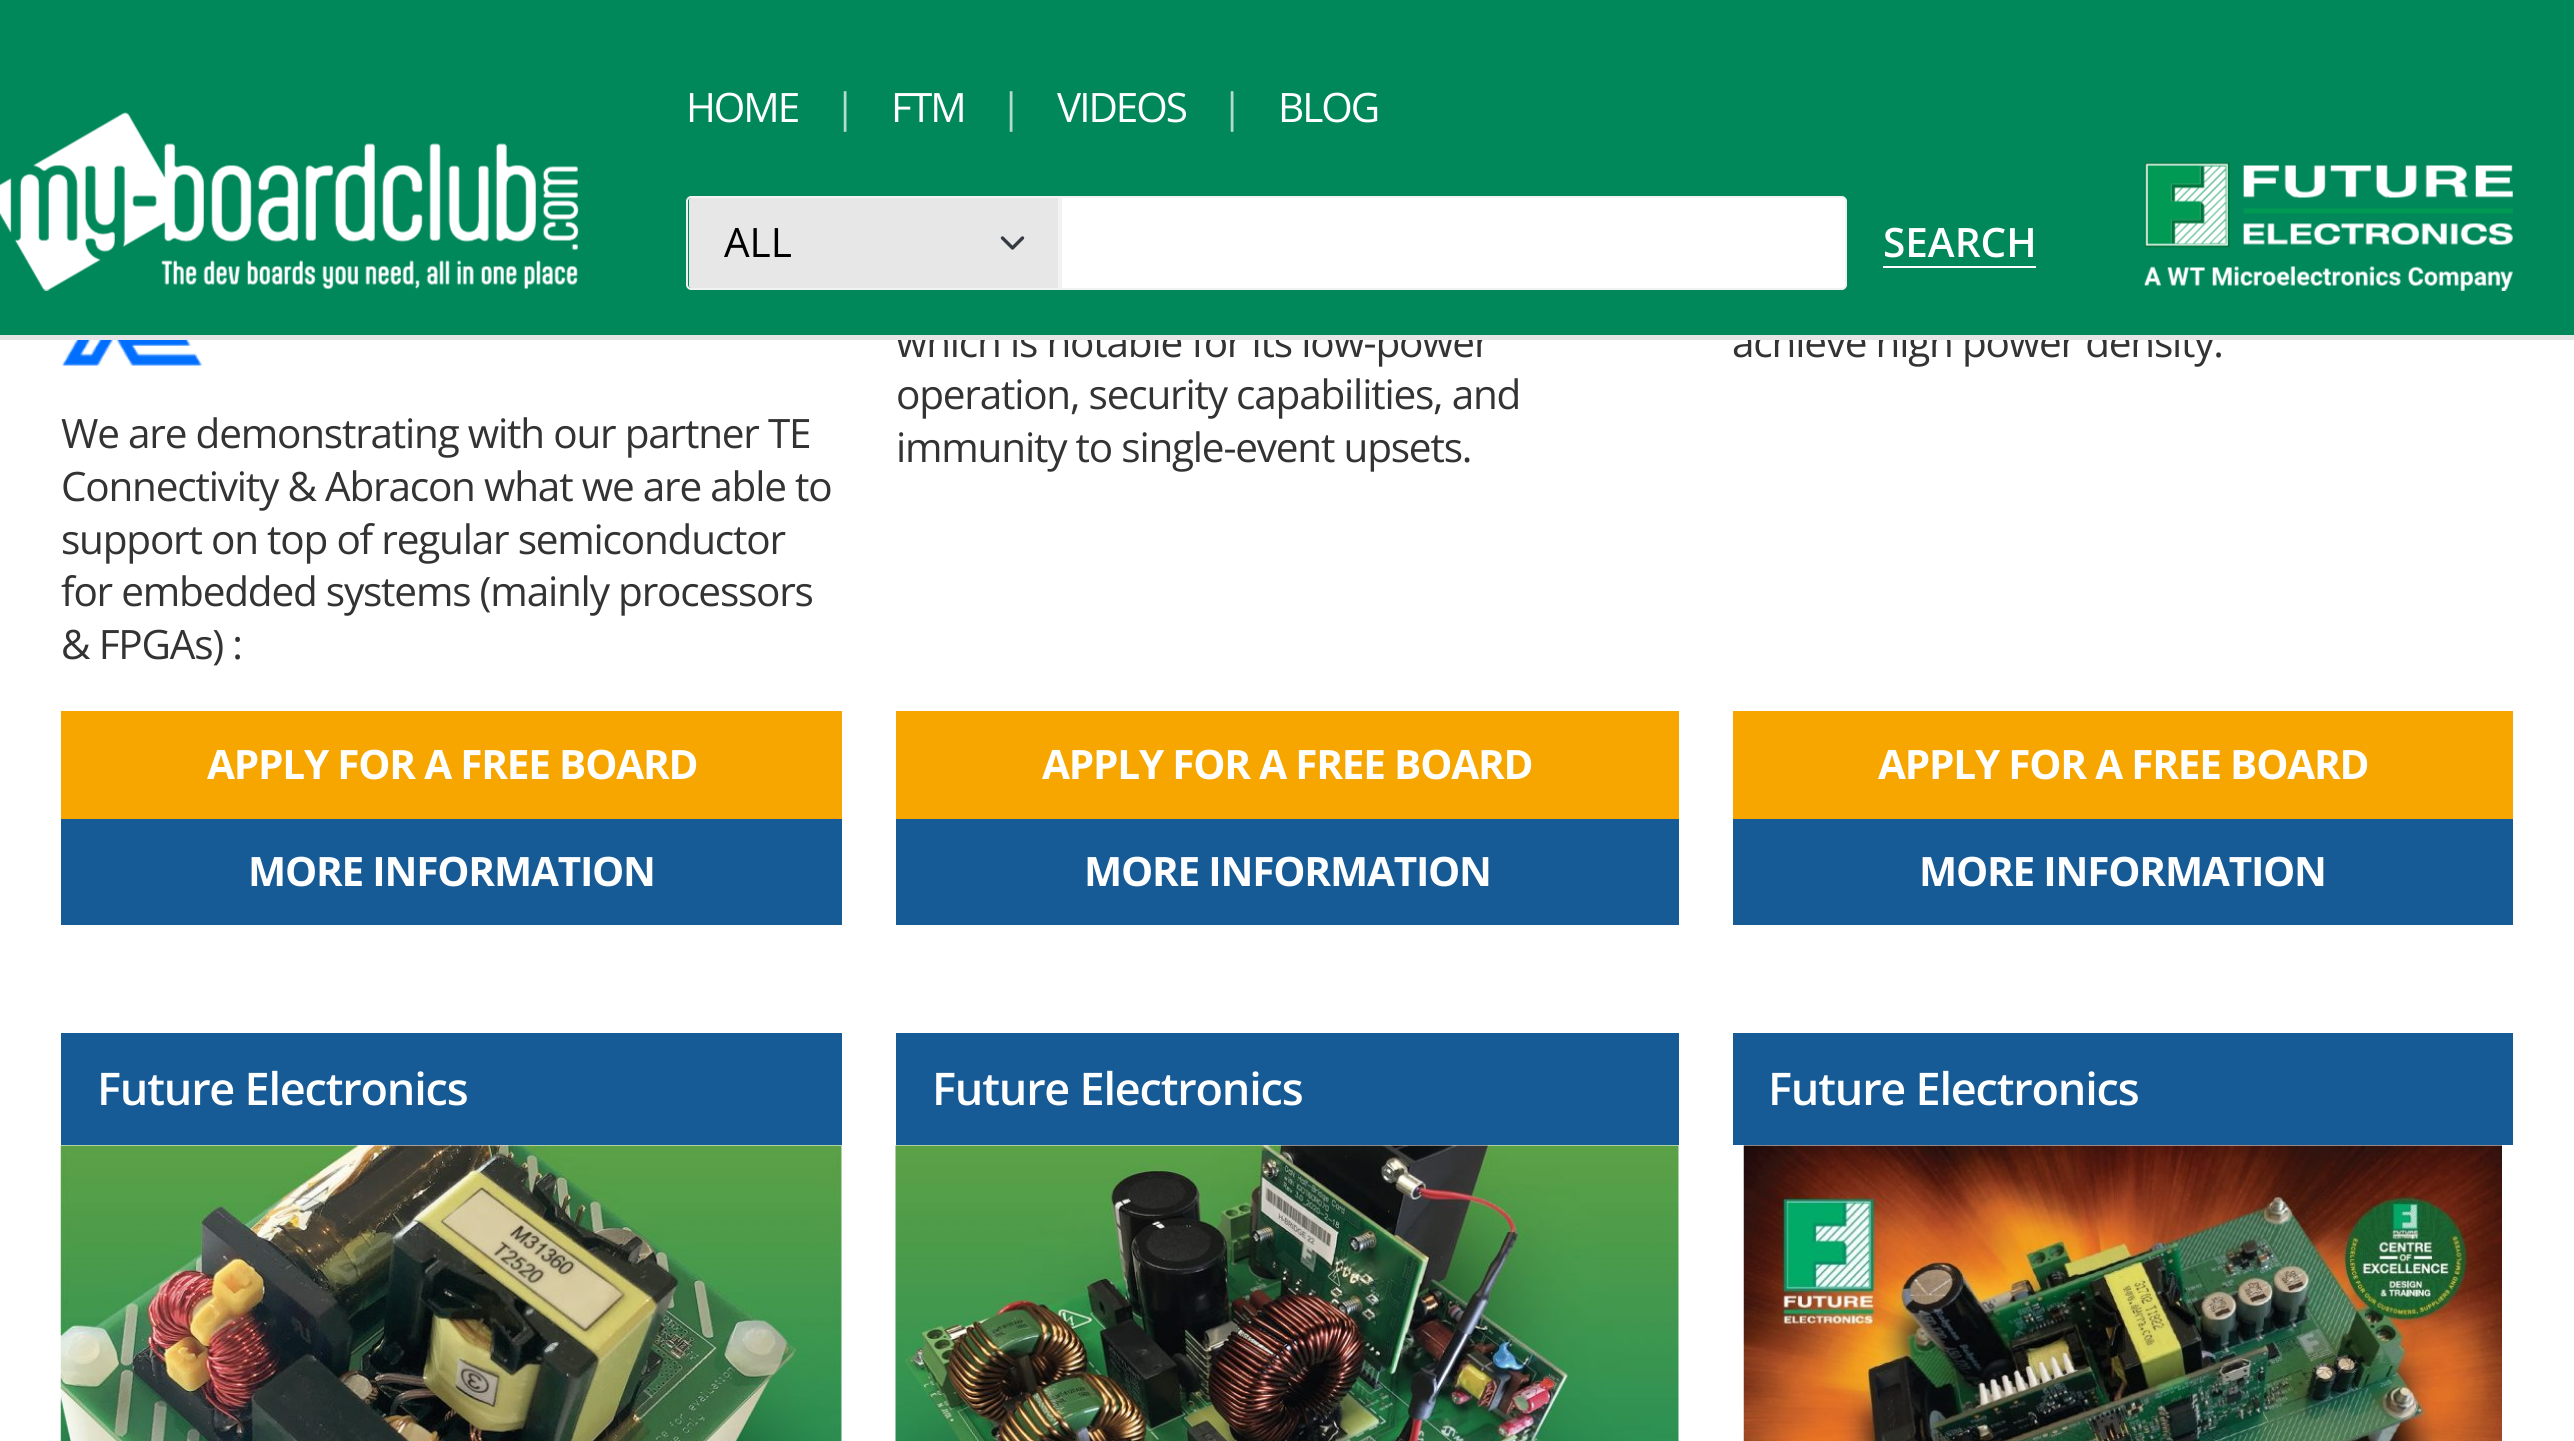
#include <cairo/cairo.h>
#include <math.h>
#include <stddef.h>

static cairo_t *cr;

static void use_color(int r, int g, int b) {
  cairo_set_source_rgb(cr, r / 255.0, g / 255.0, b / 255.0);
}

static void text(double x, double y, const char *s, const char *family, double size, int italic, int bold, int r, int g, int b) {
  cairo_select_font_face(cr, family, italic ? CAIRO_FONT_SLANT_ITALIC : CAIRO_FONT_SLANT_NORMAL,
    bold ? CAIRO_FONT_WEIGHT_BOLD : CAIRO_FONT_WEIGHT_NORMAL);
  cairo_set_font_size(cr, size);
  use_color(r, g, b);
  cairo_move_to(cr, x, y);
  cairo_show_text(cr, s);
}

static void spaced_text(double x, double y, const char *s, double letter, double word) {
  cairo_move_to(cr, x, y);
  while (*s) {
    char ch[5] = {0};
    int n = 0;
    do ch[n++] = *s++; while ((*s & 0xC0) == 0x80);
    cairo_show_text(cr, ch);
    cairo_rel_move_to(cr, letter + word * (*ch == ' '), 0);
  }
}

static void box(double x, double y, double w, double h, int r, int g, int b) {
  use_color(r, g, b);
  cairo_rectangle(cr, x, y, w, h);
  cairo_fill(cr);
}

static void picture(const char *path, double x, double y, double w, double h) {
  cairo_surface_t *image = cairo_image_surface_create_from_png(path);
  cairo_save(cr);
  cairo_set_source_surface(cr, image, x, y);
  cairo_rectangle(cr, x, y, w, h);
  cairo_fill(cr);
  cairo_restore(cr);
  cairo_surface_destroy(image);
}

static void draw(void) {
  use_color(255, 255, 255);
  cairo_paint(cr);
  picture("img_03.png", 62, 340, 578, 26);
  box(61, 711, 781, 108, 247, 166, 0);
  box(61, 819, 781, 106, 22, 90, 150);
  box(896, 711, 783, 108, 247, 166, 0);
  box(896, 819, 783, 106, 22, 90, 150);
  box(1733, 711, 780, 108, 247, 166, 0);
  box(1733, 819, 780, 106, 22, 90, 150);
  box(61, 1033, 781, 112, 22, 90, 150);
  picture("img_04.png", 60, 1145, 782, 296);
  box(896, 1033, 783, 112, 22, 90, 150);
  picture("img_05.png", 895, 1145, 784, 296);
  box(1733, 1033, 780, 112, 22, 90, 150);
  picture("img_06.png", 1743, 1145, 759, 296);
  cairo_select_font_face(cr, "Open Sans", CAIRO_FONT_SLANT_NORMAL, CAIRO_FONT_WEIGHT_NORMAL);
  cairo_set_font_size(cr, 40.5);
  use_color(51, 51, 51);
  spaced_text(61, 448, "We are demonstrating with our partner TE", -1.2, 0);
  spaced_text(61, 501, "Connectivity & Abracon what we are able to", -1.2, 0);
  spaced_text(61, 554, "support on top of regular semiconductor", -1.2, 0);
  spaced_text(61, 606, "for embedded systems (mainly processors", -1.2, 0);
  spaced_text(61, 659, "& FPGAs) :", -1.2, 0);
  cairo_select_font_face(cr, "Open Sans", CAIRO_FONT_SLANT_NORMAL, CAIRO_FONT_WEIGHT_BOLD);
  use_color(255, 255, 255);
  spaced_text(207, 779, "APPLY FOR A FREE BOARD", -1.2, 0);
  spaced_text(248, 886, "MORE INFORMATION", -1.2, 0);
  cairo_select_font_face(cr, "Open Sans", CAIRO_FONT_SLANT_NORMAL, CAIRO_FONT_WEIGHT_NORMAL);
  use_color(51, 51, 51);
  spaced_text(896, 357, "which is notable for its low-power", -1.2, 0);
  spaced_text(896, 409, "operation, security capabilities, and", -1.2, 0);
  spaced_text(896, 462, "immunity to single-event upsets.", -1.2, 0);
  cairo_select_font_face(cr, "Open Sans", CAIRO_FONT_SLANT_NORMAL, CAIRO_FONT_WEIGHT_BOLD);
  use_color(255, 255, 255);
  spaced_text(1042, 779, "APPLY FOR A FREE BOARD", -1.2, 0);
  spaced_text(1084, 886, "MORE INFORMATION", -1.2, 0);
  cairo_select_font_face(cr, "Open Sans", CAIRO_FONT_SLANT_NORMAL, CAIRO_FONT_WEIGHT_NORMAL);
  use_color(51, 51, 51);
  spaced_text(1732, 357, "achieve high power density.", -1.2, 0);
  box(0, 0, 2574, 335, 0, 136, 91);
  use_color(179, 219, 206);
  spaced_text(1221, 122, "|", -2, 0);
  spaced_text(1000, 122, "|", -2, 0);
  spaced_text(834, 122, "|", -2, 0);
  text(1883, 257, "SEARCH", "Open Sans SemiBold", 40.5, 0, 0, 255, 255, 255);
  box(1883, 266, 153, 2, 255, 255, 255);
  picture("img_02.png", 2144, 162, 369, 129);
  cairo_new_path(cr);
  cairo_move_to(cr, 1061, 197);
  cairo_line_to(cr, 1842, 197);
  cairo_curve_to(cr, 1844, 197, 1846, 199, 1846, 201);
  cairo_line_to(cr, 1846, 285);
  cairo_curve_to(cr, 1846, 287, 1844, 289, 1842, 289);
  cairo_line_to(cr, 1061, 289);
  cairo_close_path(cr);
  cairo_fill_preserve(cr);
  use_color(242, 242, 243);
  cairo_stroke(cr);
  use_color(231, 231, 231);
  cairo_new_path(cr);
  cairo_move_to(cr, 691, 198);
  cairo_line_to(cr, 1058, 198);
  cairo_line_to(cr, 1058, 288);
  cairo_line_to(cr, 691, 288);
  cairo_curve_to(cr, 690, 288, 689, 287, 689, 286);
  cairo_line_to(cr, 689, 200);
  cairo_curve_to(cr, 689, 199, 690, 198, 691, 198);
  cairo_close_path(cr);
  cairo_fill(cr);
  cairo_new_path(cr);
  cairo_move_to(cr, 1002.5, 238);
  cairo_line_to(cr, 1012.5, 248);
  cairo_line_to(cr, 1022.5, 238);
  use_color(52, 58, 64);
  cairo_set_line_width(cr, 3.4);
  cairo_set_line_cap(cr, CAIRO_LINE_CAP_ROUND);
  cairo_set_line_join(cr, CAIRO_LINE_JOIN_ROUND);
  cairo_stroke(cr);
  cairo_new_path(cr);
  cairo_move_to(cr, 691, 197);
  cairo_line_to(cr, 1059, 197);
  cairo_line_to(cr, 1059, 289);
  cairo_line_to(cr, 691, 289);
  cairo_curve_to(cr, 689, 289, 687, 287, 687, 285);
  cairo_line_to(cr, 687, 201);
  cairo_curve_to(cr, 687, 199, 689, 197, 691, 197);
  cairo_close_path(cr);
  use_color(242, 242, 243);
  cairo_set_line_width(cr, 2);
  cairo_set_line_cap(cr, CAIRO_LINE_CAP_BUTT);
  cairo_set_line_join(cr, CAIRO_LINE_JOIN_MITER);
  cairo_stroke(cr);
  text(724, 257, "ALL", "Open Sans", 40.5, 0, 0, 0, 0, 0);
  use_color(255, 255, 255);
  spaced_text(1278, 122, "BLOG", -2, 0);
  spaced_text(1057, 122, "VIDEOS", -2, 0);
  spaced_text(891, 122, "FTM", -2, 0);
  spaced_text(686, 122, "HOME", -2, 0);
  picture("img_01.png", 0, 112, 579, 179);
  box(0, 335, 2574, 5, 229, 229, 229);
  cairo_select_font_face(cr, "Open Sans", CAIRO_FONT_SLANT_NORMAL, CAIRO_FONT_WEIGHT_BOLD);
  use_color(255, 255, 255);
  spaced_text(1878, 779, "APPLY FOR A FREE BOARD", -1.2, 0);
  spaced_text(1919, 886, "MORE INFORMATION", -1.2, 0);
  cairo_select_font_face(cr, "Open Sans SemiBold", CAIRO_FONT_SLANT_NORMAL, CAIRO_FONT_WEIGHT_NORMAL);
  cairo_set_font_size(cr, 45);
  spaced_text(97, 1105, "Future Electronics", -1.2, 0);
  spaced_text(932, 1105, "Future Electronics", -1.2, 0);
  spaced_text(1768, 1105, "Future Electronics", -1.2, 0);
}

int main(void) {
  cairo_surface_t *surface = cairo_image_surface_create(CAIRO_FORMAT_RGB24, 2574, 1441);
  cr = cairo_create(surface);
  cairo_font_options_t *options = cairo_font_options_create();
  cairo_font_options_set_hint_metrics(options, CAIRO_HINT_METRICS_OFF);
  cairo_font_options_set_hint_style(options, CAIRO_HINT_STYLE_NONE);
  cairo_set_font_options(cr, options);
  cairo_set_miter_limit(cr, 4);
  draw();
  cairo_surface_write_to_png(surface, "out.png");
  cairo_font_options_destroy(options);
  cairo_destroy(cr);
  cairo_surface_destroy(surface);
  return 0;
}
